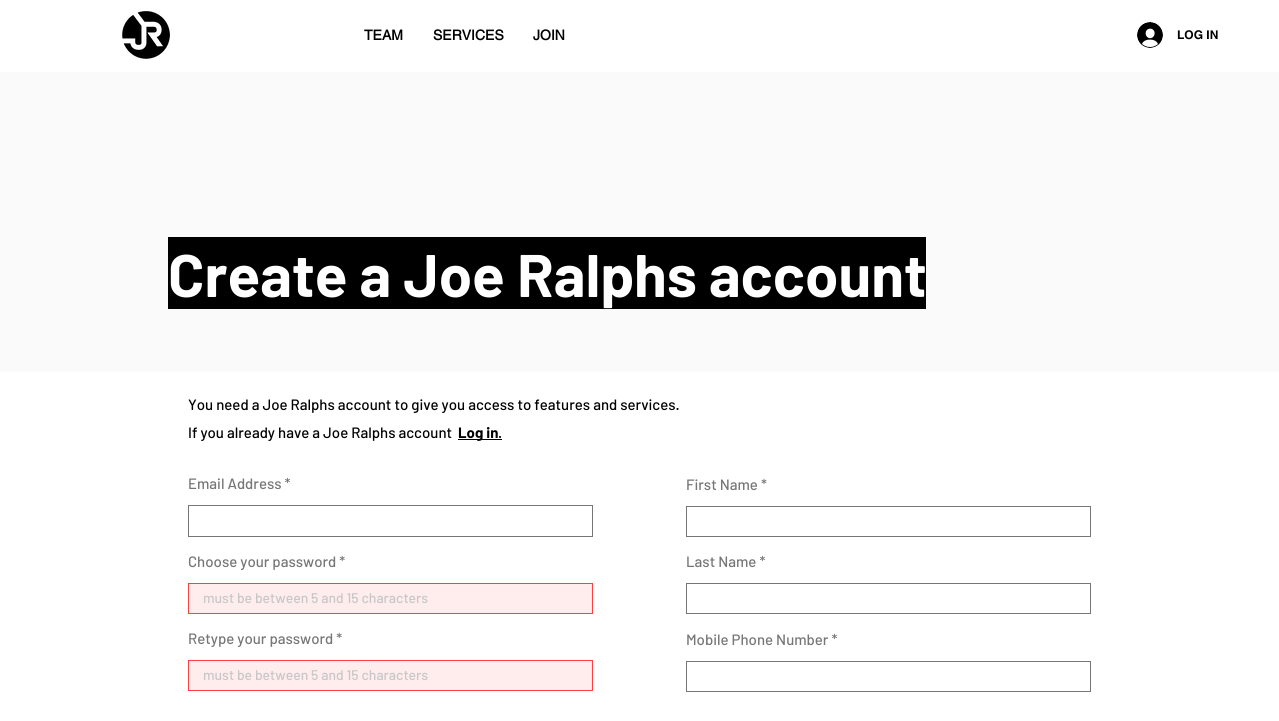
#include <cairo/cairo.h>
#include <math.h>
#include <stddef.h>

static cairo_t *cr;

static void use_color(int r, int g, int b) {
  cairo_set_source_rgb(cr, r / 255.0, g / 255.0, b / 255.0);
}

static void text(double x, double y, const char *s, const char *family, double size, int italic, int bold, int r, int g, int b) {
  cairo_select_font_face(cr, family, italic ? CAIRO_FONT_SLANT_ITALIC : CAIRO_FONT_SLANT_NORMAL,
    bold ? CAIRO_FONT_WEIGHT_BOLD : CAIRO_FONT_WEIGHT_NORMAL);
  cairo_set_font_size(cr, size);
  use_color(r, g, b);
  cairo_move_to(cr, x, y);
  cairo_show_text(cr, s);
}

static void box(double x, double y, double w, double h, int r, int g, int b) {
  use_color(r, g, b);
  cairo_rectangle(cr, x, y, w, h);
  cairo_fill(cr);
}

static void picture(const char *path, double x, double y, double w, double h) {
  cairo_surface_t *image = cairo_image_surface_create_from_png(path);
  cairo_save(cr);
  cairo_set_source_surface(cr, image, x, y);
  cairo_rectangle(cr, x, y, w, h);
  cairo_fill(cr);
  cairo_restore(cr);
  cairo_surface_destroy(image);
}

static void draw(void) {
  use_color(255, 255, 255);
  cairo_paint(cr);
  picture("img_01.png", 122, 11, 48, 48);
  picture("img_02.png", 1137, 22, 26, 26);
  box(0, 72, 1279, 300, 250, 250, 250);
  box(168, 237, 758, 72, 0, 0, 0);
  box(458, 439, 44, 1, 0, 0, 0);
  cairo_rectangle(cr, 188.5, 505.5, 404, 31);
  use_color(118, 118, 118);
  cairo_set_line_width(cr, 1);
  cairo_stroke(cr);
  cairo_rectangle(cr, 686.5, 506.5, 404, 30);
  cairo_stroke(cr);
  use_color(255, 236, 236);
  cairo_rectangle(cr, 188.5, 583.5, 404, 30);
  cairo_fill_preserve(cr);
  use_color(255, 64, 64);
  cairo_stroke(cr);
  cairo_rectangle(cr, 686.5, 583.5, 404, 30);
  use_color(118, 118, 118);
  cairo_stroke(cr);
  use_color(255, 236, 236);
  cairo_rectangle(cr, 188.5, 660.5, 404, 30);
  cairo_fill_preserve(cr);
  use_color(255, 64, 64);
  cairo_stroke(cr);
  cairo_rectangle(cr, 686.5, 661.5, 404, 30);
  use_color(118, 118, 118);
  cairo_stroke(cr);
  text(364, 40, "TEAM", "helvetica", 14, 0, 1, 0, 0, 0);
  text(433, 40, "SERVICES", "helvetica", 14, 0, 1, 0, 0, 0);
  text(533, 40, "JOIN", "helvetica", 14, 0, 1, 0, 0, 0);
  text(1177, 39, "LOG IN", "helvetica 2", 12, 0, 1, 0, 0, 0);
  text(168, 297, "Create a Joe Ralphs account", "Barlow", 60, 0, 1, 255, 255, 255);
  text(188, 410, "You need a Joe Ralphs account to give you access to features and services.", "Barlow Medium", 15, 0, 0, 0, 0, 0);
  text(188, 438, "If you already have a Joe Ralphs account", "Barlow Medium", 15, 0, 0, 0, 0, 0);
  text(458, 438, "Log in", "Barlow", 15, 0, 1, 0, 0, 0);
  text(498, 438, ".", "Barlow Medium", 15, 0, 0, 0, 0, 0);
  text(188, 489, "Email Address *", "Barlow Medium", 15, 0, 0, 118, 118, 118);
  text(686, 490, "First Name *", "Barlow Medium", 15, 0, 0, 118, 118, 118);
  text(188, 567, "Choose your password *", "Barlow Medium", 15, 0, 0, 118, 118, 118);
  text(203, 603, "must be between 5 and 15 characters", "Barlow Medium", 14, 0, 0, 199, 199, 199);
  text(686, 567, "Last Name *", "Barlow Medium", 15, 0, 0, 118, 118, 118);
  text(188, 644, "Retype your password *", "Barlow Medium", 15, 0, 0, 118, 118, 118);
  text(203, 680, "must be between 5 and 15 characters", "Barlow Medium", 14, 0, 0, 199, 199, 199);
  text(686, 645, "Mobile Phone Number *", "Barlow Medium", 15, 0, 0, 118, 118, 118);
}

int main(void) {
  cairo_surface_t *surface = cairo_image_surface_create(CAIRO_FORMAT_RGB24, 1279, 721);
  cr = cairo_create(surface);
  cairo_font_options_t *options = cairo_font_options_create();
  cairo_font_options_set_hint_metrics(options, CAIRO_HINT_METRICS_OFF);
  cairo_font_options_set_hint_style(options, CAIRO_HINT_STYLE_NONE);
  cairo_set_font_options(cr, options);
  cairo_set_miter_limit(cr, 4);
  draw();
  cairo_surface_write_to_png(surface, "out.png");
  cairo_font_options_destroy(options);
  cairo_destroy(cr);
  cairo_surface_destroy(surface);
  return 0;
}
